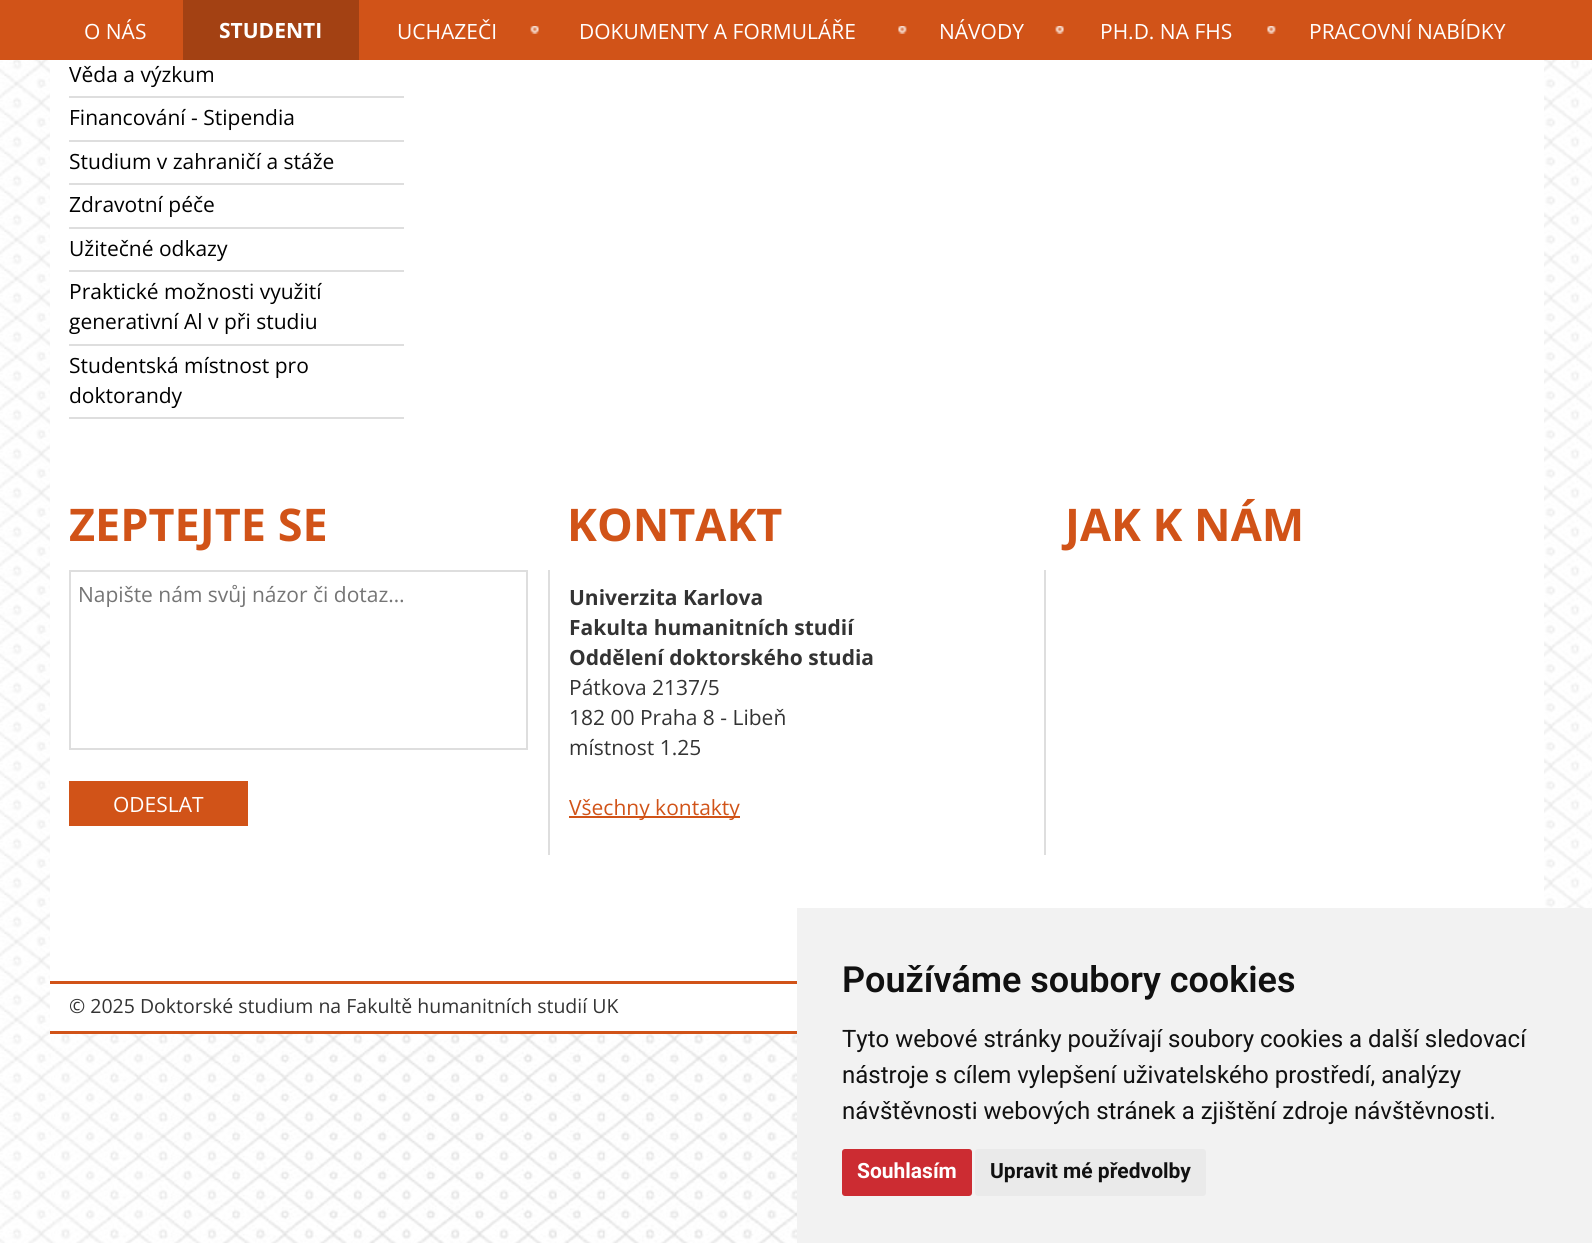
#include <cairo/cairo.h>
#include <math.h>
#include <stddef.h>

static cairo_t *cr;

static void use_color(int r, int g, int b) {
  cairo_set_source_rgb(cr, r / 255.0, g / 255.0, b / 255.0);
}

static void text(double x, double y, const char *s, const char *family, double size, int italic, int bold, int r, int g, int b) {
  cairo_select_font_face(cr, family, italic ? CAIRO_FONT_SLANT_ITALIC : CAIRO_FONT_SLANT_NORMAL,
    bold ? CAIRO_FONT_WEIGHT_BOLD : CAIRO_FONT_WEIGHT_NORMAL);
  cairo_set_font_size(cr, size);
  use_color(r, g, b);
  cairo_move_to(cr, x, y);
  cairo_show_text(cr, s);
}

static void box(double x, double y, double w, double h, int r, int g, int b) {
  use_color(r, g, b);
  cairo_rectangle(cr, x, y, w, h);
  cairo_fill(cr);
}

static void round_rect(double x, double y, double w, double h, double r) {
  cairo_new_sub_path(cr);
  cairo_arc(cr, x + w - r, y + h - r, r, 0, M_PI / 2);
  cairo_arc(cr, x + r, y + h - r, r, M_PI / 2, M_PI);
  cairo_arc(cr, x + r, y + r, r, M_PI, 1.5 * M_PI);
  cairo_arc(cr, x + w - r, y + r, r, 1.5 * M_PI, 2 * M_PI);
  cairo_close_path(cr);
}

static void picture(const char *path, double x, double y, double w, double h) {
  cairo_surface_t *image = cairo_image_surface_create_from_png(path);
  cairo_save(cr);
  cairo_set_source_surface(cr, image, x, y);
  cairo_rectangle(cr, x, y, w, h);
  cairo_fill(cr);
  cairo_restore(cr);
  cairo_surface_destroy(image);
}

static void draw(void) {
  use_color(255, 255, 255);
  cairo_paint(cr);
  picture("img_01.png", 0, 60, 1592, 1183);
  box(0, 0, 1592, 60, 209, 83, 24);
  box(183, 0, 176, 60, 163, 65, 19);
  picture("img_02.png", 530, 26, 9, 8);
  picture("img_03.png", 898, 26, 9, 8);
  picture("img_02.png", 1055, 26, 9, 8);
  picture("img_03.png", 1267, 26, 9, 8);
  box(50, 60, 1494, 921, 255, 255, 255);
  box(69, 96, 335, 2, 222, 222, 222);
  box(69, 140, 335, 2, 222, 222, 222);
  box(69, 183, 335, 2, 222, 222, 222);
  box(69, 227, 335, 2, 222, 222, 222);
  box(69, 270, 335, 2, 222, 222, 222);
  box(69, 344, 335, 2, 222, 222, 222);
  box(69, 417, 335, 2, 222, 222, 222);
  cairo_rectangle(cr, 70, 571, 457, 178);
  cairo_stroke(cr);
  box(69, 781, 179, 45, 209, 83, 24);
  box(1044, 570, 2, 285, 222, 222, 222);
  box(548, 570, 2, 285, 222, 222, 222);
  box(569, 816, 171, 2, 209, 83, 24);
  box(50, 984, 747, 47, 255, 255, 255);
  box(50, 981, 747, 3, 209, 83, 24);
  box(50, 1031, 747, 3, 209, 83, 24);
  box(797, 908, 795, 335, 242, 242, 242);
  use_color(204, 44, 50);
  round_rect(842, 1149, 130, 47, 3);
  cairo_fill(cr);
  use_color(234, 234, 234);
  round_rect(975, 1149, 231, 47, 3);
  cairo_fill(cr);
  text(84, 39, "O NÁS", "Open Sans", 21, 0, 0, 255, 255, 255);
  text(219, 38, "STUDENTI", "Open Sans", 21, 0, 1, 255, 255, 255);
  text(397, 39, "UCHAZEČI", "Open Sans", 21, 0, 0, 255, 255, 255);
  text(579, 39, "DOKUMENTY A FORMULÁŘE", "Open Sans", 21, 0, 0, 255, 255, 255);
  text(939, 39, "NÁVODY", "Open Sans", 21, 0, 0, 255, 255, 255);
  text(1100, 39, "PH.D. NA FHS", "Open Sans", 21, 0, 0, 255, 255, 255);
  text(1309, 39, "PRACOVNÍ NABÍDKY", "Open Sans", 21, 0, 0, 255, 255, 255);
  text(69, 82, "Věda a výzkum", "Open Sans", 21, 0, 0, 0, 0, 0);
  text(69, 125, "Financování - Stipendia", "Open Sans", 21, 0, 0, 0, 0, 0);
  text(69, 169, "Studium v zahraničí a stáže", "Open Sans", 21, 0, 0, 0, 0, 0);
  text(69, 212, "Zdravotní péče", "Open Sans", 21, 0, 0, 0, 0, 0);
  text(69, 256, "Užitečné odkazy", "Open Sans", 21, 0, 0, 0, 0, 0);
  text(69, 299, "Praktické možnosti využití", "Open Sans", 21, 0, 0, 0, 0, 0);
  text(69, 329, "generativní Al v při studiu", "Open Sans", 21, 0, 0, 0, 0, 0);
  text(69, 373, "Studentská místnost pro", "Open Sans", 21, 0, 0, 0, 0, 0);
  text(69, 403, "doktorandy", "Open Sans", 21, 0, 0, 0, 0, 0);
  text(69, 541, "ZEPTEJTE SE", "Open Sans", 45, 0, 1, 209, 83, 24);
  text(78, 602, "Napište nám svůj názor či dotaz…", "Open Sans", 21, 0, 0, 117, 117, 117);
  text(113, 812, "ODESLAT", "Open Sans", 21, 0, 0, 255, 255, 255);
  text(567, 541, "KONTAKT", "Open Sans", 45, 0, 1, 209, 83, 24);
  text(569, 605, "Univerzita Karlova", "Open Sans", 21, 0, 1, 51, 51, 51);
  text(569, 635, "Fakulta humanitních studií", "Open Sans", 21, 0, 1, 51, 51, 51);
  text(569, 665, "Oddělení doktorského studia", "Open Sans", 21, 0, 1, 51, 51, 51);
  text(569, 695, "Pátkova 2137/5", "Open Sans", 21, 0, 0, 51, 51, 51);
  text(569, 725, "182 00 Praha 8 - Libeň", "Open Sans", 21, 0, 0, 51, 51, 51);
  text(569, 755, "místnost 1.25", "Open Sans", 21, 0, 0, 51, 51, 51);
  text(569, 815, "Všechny kontakty", "Open Sans", 21, 0, 0, 209, 83, 24);
  text(1065, 541, "JAK K NÁM", "Open Sans", 45, 0, 1, 209, 83, 24);
  text(69, 1013, "© 2025 Doktorské studium na Fakultě humanitních studií UK", "Open Sans", 19.5, 0, 0, 51, 51, 51);
  text(842, 992, "Používáme soubory cookies", "Roboto SemiBold", 36, 0, 0, 17, 17, 17);
  text(842, 1047, "Tyto webové stránky používají soubory cookies a další sledovací", "Roboto", 24, 0, 0, 17, 17, 17);
  text(842, 1083, "nástroje s cílem vylepšení uživatelského prostředí, analýzy", "Roboto", 24, 0, 0, 17, 17, 17);
  text(842, 1119, "návštěvnosti webových stránek a zjištění zdroje návštěvnosti.", "Roboto", 24, 0, 0, 17, 17, 17);
  text(857, 1178, "Souhlasím", "Roboto", 21, 0, 1, 255, 255, 255);
  text(990, 1178, "Upravit mé předvolby", "Roboto", 21, 0, 1, 17, 17, 17);
}

int main(void) {
  cairo_surface_t *surface = cairo_image_surface_create(CAIRO_FORMAT_RGB24, 1592, 1243);
  cr = cairo_create(surface);
  cairo_font_options_t *options = cairo_font_options_create();
  cairo_font_options_set_hint_metrics(options, CAIRO_HINT_METRICS_OFF);
  cairo_font_options_set_hint_style(options, CAIRO_HINT_STYLE_NONE);
  cairo_set_font_options(cr, options);
  cairo_set_miter_limit(cr, 4);
  draw();
  cairo_surface_write_to_png(surface, "out.png");
  cairo_font_options_destroy(options);
  cairo_destroy(cr);
  cairo_surface_destroy(surface);
  return 0;
}
